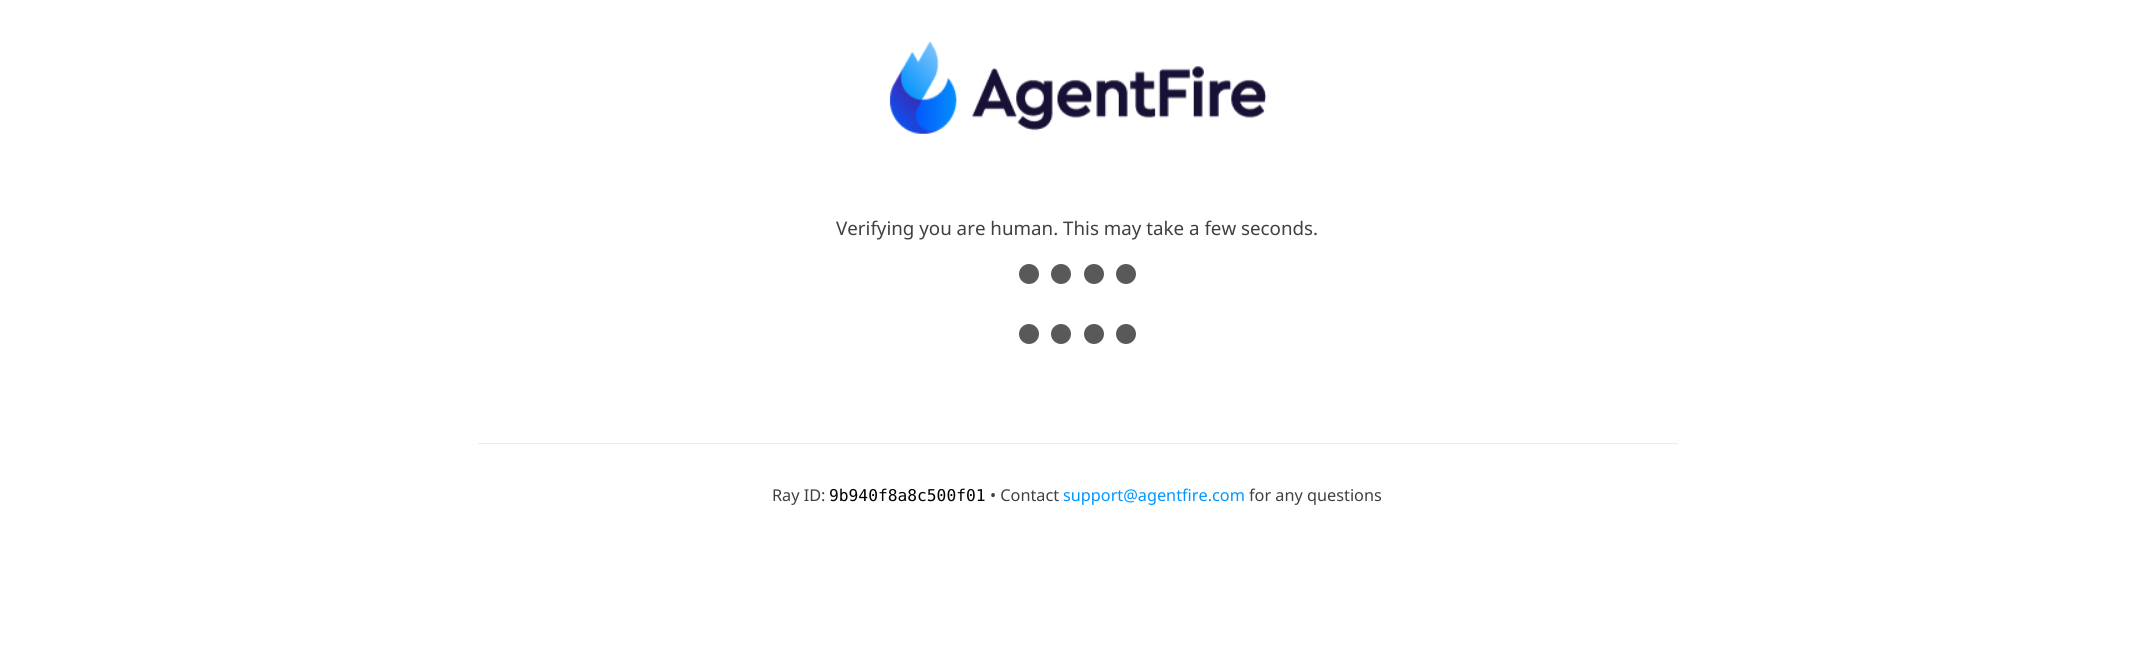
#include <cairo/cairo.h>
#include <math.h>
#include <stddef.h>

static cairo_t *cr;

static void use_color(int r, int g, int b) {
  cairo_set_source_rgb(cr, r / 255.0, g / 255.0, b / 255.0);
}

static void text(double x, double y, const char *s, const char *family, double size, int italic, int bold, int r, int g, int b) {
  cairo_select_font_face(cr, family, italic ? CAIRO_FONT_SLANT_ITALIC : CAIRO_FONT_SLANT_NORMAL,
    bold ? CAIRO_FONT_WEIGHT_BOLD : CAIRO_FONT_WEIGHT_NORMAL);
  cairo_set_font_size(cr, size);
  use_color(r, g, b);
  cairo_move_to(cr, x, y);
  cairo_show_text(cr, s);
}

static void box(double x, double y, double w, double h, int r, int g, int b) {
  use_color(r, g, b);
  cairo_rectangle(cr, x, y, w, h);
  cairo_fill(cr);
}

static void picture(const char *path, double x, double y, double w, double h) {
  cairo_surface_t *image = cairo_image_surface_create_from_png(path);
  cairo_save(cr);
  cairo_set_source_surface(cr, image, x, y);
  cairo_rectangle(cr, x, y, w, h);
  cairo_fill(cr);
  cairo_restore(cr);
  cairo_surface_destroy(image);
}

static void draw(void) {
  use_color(255, 255, 255);
  cairo_paint(cr);
  picture("img_01.png", 889, 41, 378, 93);
  use_color(89, 89, 89);
  cairo_arc(cr, 1029, 274, 10, 0, 2 * M_PI);
  cairo_fill(cr);
  cairo_arc(cr, 1061, 274, 10, 0, 2 * M_PI);
  cairo_fill(cr);
  cairo_arc(cr, 1094, 274, 10, 0, 2 * M_PI);
  cairo_fill(cr);
  cairo_arc(cr, 1126, 274, 10, 0, 2 * M_PI);
  cairo_fill(cr);
  cairo_arc(cr, 1029, 334, 10, 0, 2 * M_PI);
  cairo_fill(cr);
  cairo_arc(cr, 1061, 334, 10, 0, 2 * M_PI);
  cairo_fill(cr);
  cairo_arc(cr, 1094, 334, 10, 0, 2 * M_PI);
  cairo_fill(cr);
  cairo_arc(cr, 1126, 334, 10, 0, 2 * M_PI);
  cairo_fill(cr);
  box(478, 443, 1200, 1, 235, 235, 235);
  text(836, 235, "Verifying you are human. This may take a few seconds.", "Noto Sans", 18.75, 0, 0, 64, 64, 64);
  text(772, 501, "Ray ID:", "Noto Sans", 16.25, 0, 0, 64, 64, 64);
  text(829, 501, "9b940f8a8c500f01", "DejaVu Sans Mono", 16.25, 0, 0, 0, 0, 0);
  text(990, 501, "• Contact", "Noto Sans", 16.25, 0, 0, 64, 64, 64);
  text(1063, 501, "support@agentfire.com", "Noto Sans", 16.25, 0, 0, 0, 149, 255);
  text(1249, 501, "for any questions", "Noto Sans", 16.25, 0, 0, 64, 64, 64);
}

int main(void) {
  cairo_surface_t *surface = cairo_image_surface_create(CAIRO_FORMAT_RGB24, 2153, 656);
  cr = cairo_create(surface);
  cairo_font_options_t *options = cairo_font_options_create();
  cairo_font_options_set_hint_metrics(options, CAIRO_HINT_METRICS_OFF);
  cairo_font_options_set_hint_style(options, CAIRO_HINT_STYLE_NONE);
  cairo_set_font_options(cr, options);
  cairo_set_miter_limit(cr, 4);
  draw();
  cairo_surface_write_to_png(surface, "out.png");
  cairo_font_options_destroy(options);
  cairo_destroy(cr);
  cairo_surface_destroy(surface);
  return 0;
}
